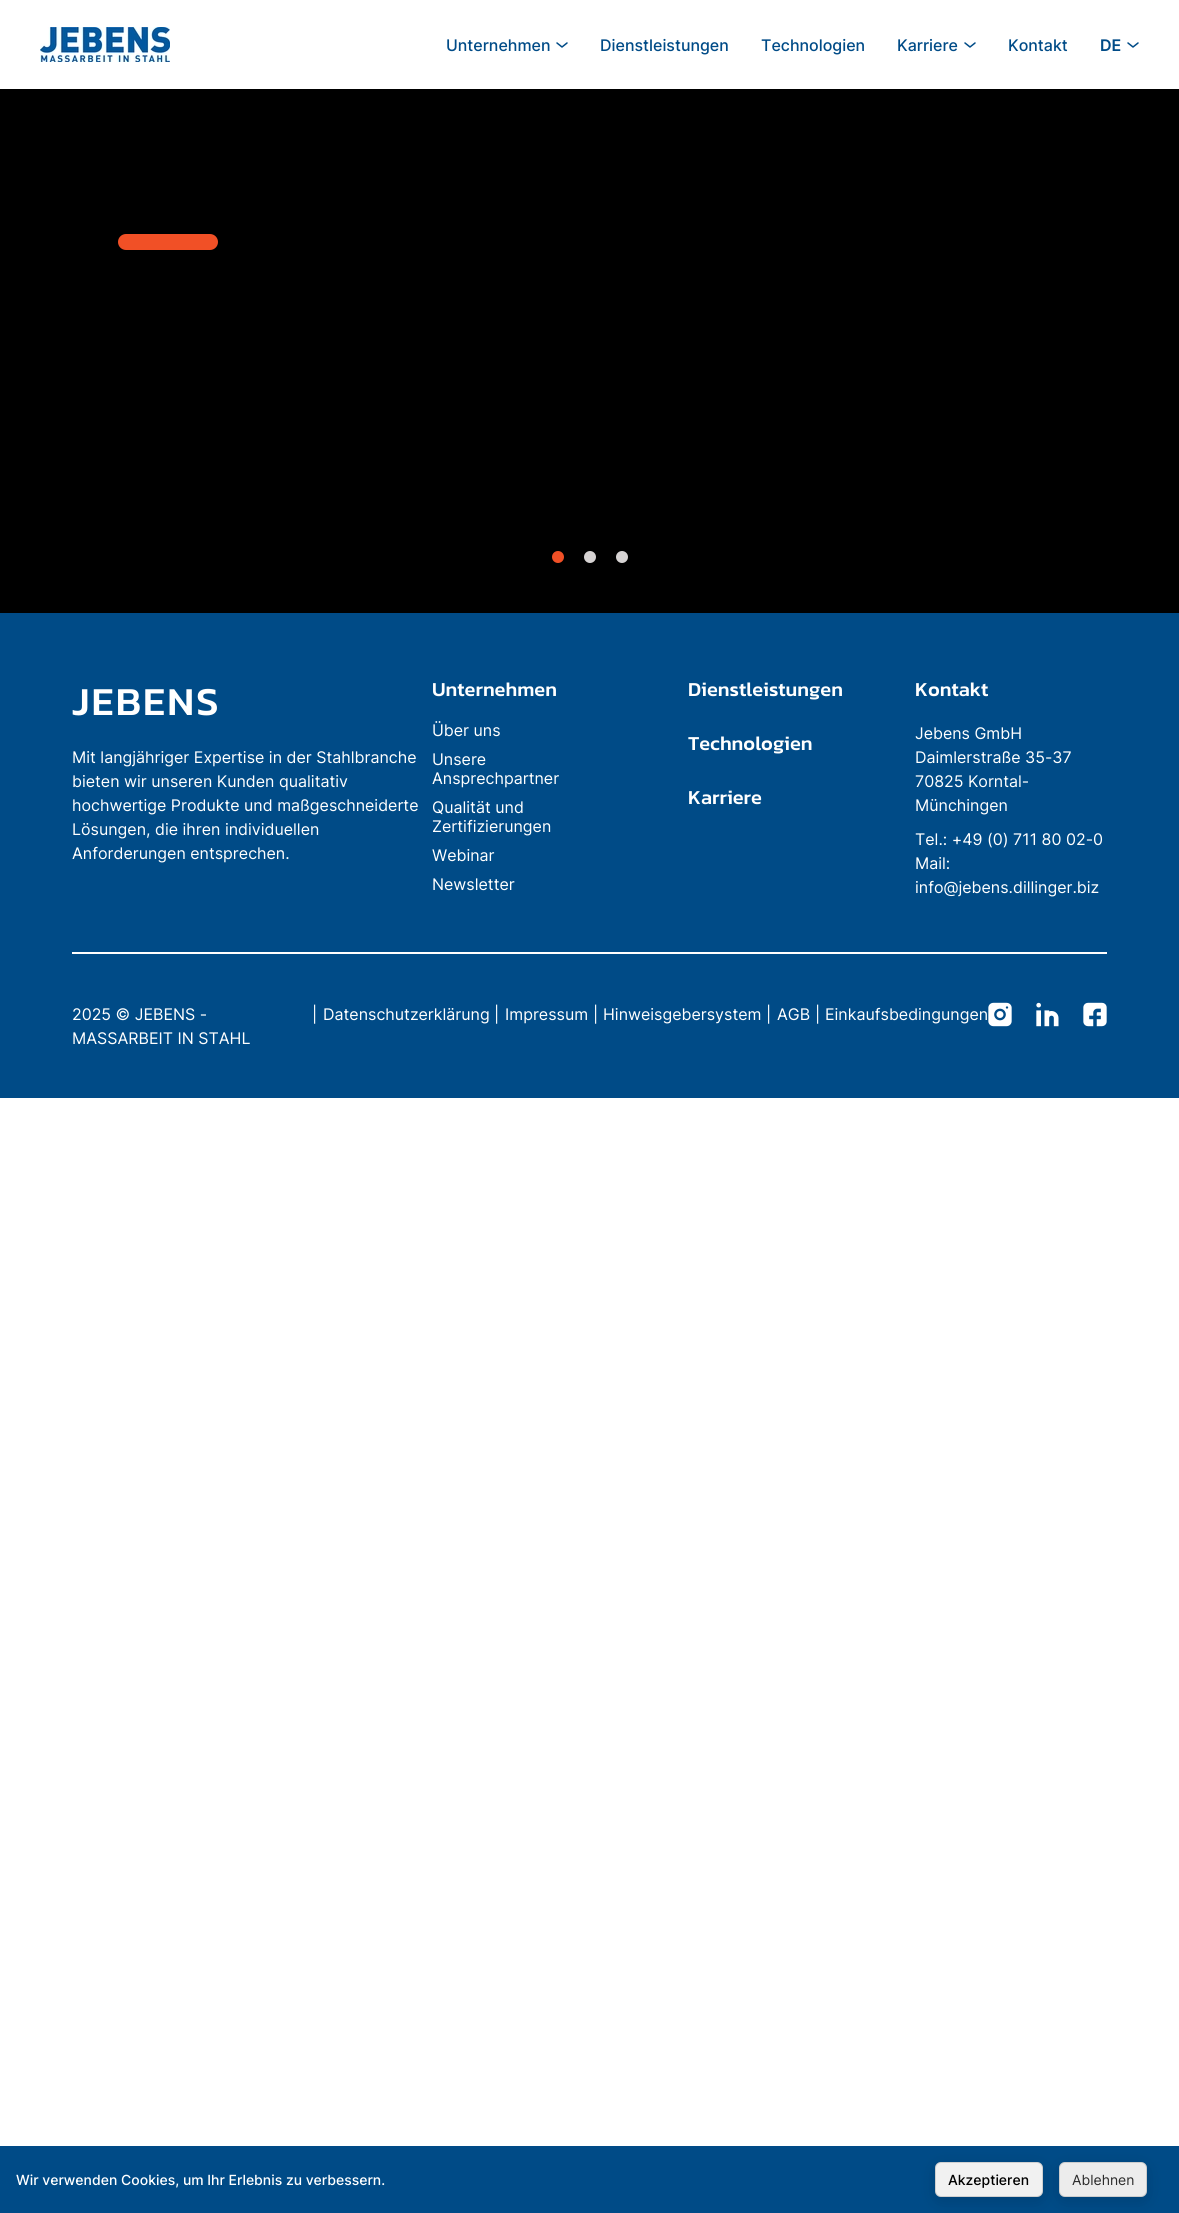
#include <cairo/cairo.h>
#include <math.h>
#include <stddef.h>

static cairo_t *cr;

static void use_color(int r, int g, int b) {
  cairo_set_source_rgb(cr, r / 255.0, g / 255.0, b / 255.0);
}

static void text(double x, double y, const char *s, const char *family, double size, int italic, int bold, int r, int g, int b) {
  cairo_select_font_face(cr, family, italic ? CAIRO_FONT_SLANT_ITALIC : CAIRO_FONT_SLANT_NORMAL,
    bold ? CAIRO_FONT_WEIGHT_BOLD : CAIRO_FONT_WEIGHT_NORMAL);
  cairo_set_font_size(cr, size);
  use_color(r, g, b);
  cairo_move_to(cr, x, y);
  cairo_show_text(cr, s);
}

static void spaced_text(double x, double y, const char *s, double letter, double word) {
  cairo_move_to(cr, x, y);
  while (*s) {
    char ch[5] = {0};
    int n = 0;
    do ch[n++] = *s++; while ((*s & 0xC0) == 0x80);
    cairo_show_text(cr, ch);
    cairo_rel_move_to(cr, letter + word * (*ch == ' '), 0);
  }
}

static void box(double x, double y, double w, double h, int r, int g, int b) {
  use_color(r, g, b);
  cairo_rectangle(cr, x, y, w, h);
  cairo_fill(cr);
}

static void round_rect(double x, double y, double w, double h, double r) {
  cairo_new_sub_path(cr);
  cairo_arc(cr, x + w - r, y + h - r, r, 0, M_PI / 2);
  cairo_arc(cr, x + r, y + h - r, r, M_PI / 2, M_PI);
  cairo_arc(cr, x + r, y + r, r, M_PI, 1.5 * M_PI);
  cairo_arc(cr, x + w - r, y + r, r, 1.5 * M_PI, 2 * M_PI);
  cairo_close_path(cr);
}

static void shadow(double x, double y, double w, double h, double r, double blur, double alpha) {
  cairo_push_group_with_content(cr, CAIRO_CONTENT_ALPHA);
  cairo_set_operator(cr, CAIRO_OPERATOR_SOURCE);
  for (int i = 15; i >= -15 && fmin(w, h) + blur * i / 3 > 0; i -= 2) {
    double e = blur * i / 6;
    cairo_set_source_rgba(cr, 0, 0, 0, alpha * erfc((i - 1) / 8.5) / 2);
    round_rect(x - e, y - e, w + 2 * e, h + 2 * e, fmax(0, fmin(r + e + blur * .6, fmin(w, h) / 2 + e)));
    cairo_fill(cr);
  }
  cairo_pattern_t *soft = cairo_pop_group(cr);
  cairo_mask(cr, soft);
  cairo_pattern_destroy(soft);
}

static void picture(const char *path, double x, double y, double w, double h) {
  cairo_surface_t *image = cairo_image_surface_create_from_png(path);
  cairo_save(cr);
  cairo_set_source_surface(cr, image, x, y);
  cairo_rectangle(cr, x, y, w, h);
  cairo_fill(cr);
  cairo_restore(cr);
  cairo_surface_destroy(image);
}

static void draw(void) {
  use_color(255, 255, 255);
  cairo_paint(cr);
  picture("img_01.png", 40, 27, 130, 35);
  cairo_new_path(cr);
  cairo_move_to(cr, 557, 43);
  cairo_line_to(cr, 562, 47);
  cairo_line_to(cr, 567, 43);
  use_color(0, 75, 135);
  cairo_set_line_width(cr, 1.5);
  cairo_set_line_cap(cr, CAIRO_LINE_CAP_ROUND);
  cairo_set_line_join(cr, CAIRO_LINE_JOIN_ROUND);
  cairo_stroke(cr);
  cairo_new_path(cr);
  cairo_move_to(cr, 965, 43);
  cairo_line_to(cr, 970, 47);
  cairo_line_to(cr, 975, 43);
  cairo_stroke(cr);
  cairo_new_path(cr);
  cairo_move_to(cr, 1128, 43);
  cairo_line_to(cr, 1133, 47);
  cairo_line_to(cr, 1138, 43);
  cairo_stroke(cr);
  box(0, 89, 1179, 524, 0, 0, 0);
  use_color(241, 80, 38);
  round_rect(118, 234, 100, 16, 8);
  cairo_fill(cr);
  cairo_arc(cr, 558, 557, 6, 0, 2 * M_PI);
  cairo_fill(cr);
  use_color(214, 211, 211);
  cairo_arc(cr, 590, 557, 6, 0, 2 * M_PI);
  cairo_fill(cr);
  cairo_arc(cr, 622, 557, 6, 0, 2 * M_PI);
  cairo_fill(cr);
  box(0, 613, 1179, 485, 0, 75, 135);
  box(72, 952, 1035, 2, 255, 255, 255);
  picture("img_02.png", 988, 1002, 24, 25);
  picture("img_03.png", 1036, 1002, 23, 25);
  picture("img_04.png", 1083, 1002, 24, 25);
  box(0, 2146, 1179, 67, 0, 75, 135);
  use_color(0, 0, 0);
  shadow(935, 2166, 108, 35, 6, 7.5, 0.14);
  use_color(241, 241, 241);
  round_rect(935, 2162, 108, 35, 6);
  cairo_fill(cr);
  round_rect(935.5, 2162.5, 107, 34, 5.5);
  cairo_set_source_rgba(cr, 0, 0, 0, 0.14);
  cairo_set_line_width(cr, 1);
  cairo_set_line_cap(cr, CAIRO_LINE_CAP_BUTT);
  cairo_set_line_join(cr, CAIRO_LINE_JOIN_MITER);
  cairo_stroke(cr);
  use_color(0, 0, 0);
  shadow(1059, 2166, 88, 35, 6, 7.5, 0.14);
  use_color(236, 236, 236);
  round_rect(1059, 2162, 88, 35, 6);
  cairo_fill(cr);
  round_rect(1059.5, 2162.5, 87, 34, 5.5);
  cairo_set_source_rgba(cr, 0, 0, 0, 0.14);
  cairo_stroke(cr);
  text(446, 51, "Unternehmen", "Inter Medium", 16, 0, 0, 0, 75, 135);
  text(600, 51, "Dienstleistungen", "Inter Medium", 16, 0, 0, 0, 75, 135);
  text(761, 51, "Technologien", "Inter Medium", 16, 0, 0, 0, 75, 135);
  text(897, 51, "Karriere", "Inter Medium", 16, 0, 0, 0, 75, 135);
  text(1008, 51, "Kontakt", "Inter Medium", 16, 0, 0, 0, 75, 135);
  text(1100, 51, "DE", "Inter SemiBold", 16, 0, 0, 0, 75, 135);
  cairo_select_font_face(cr, "Kanit Medium", CAIRO_FONT_SLANT_NORMAL, CAIRO_FONT_WEIGHT_NORMAL);
  cairo_set_font_size(cr, 40);
  use_color(255, 255, 255);
  spaced_text(72, 715, "JEBENS", 2, 0);
  text(72, 763, "Mit langjähriger Expertise in der Stahlbranche", "Inter", 16, 0, 0, 255, 255, 255);
  text(72, 787, "bieten wir unseren Kunden qualitativ", "Inter", 16, 0, 0, 255, 255, 255);
  text(72, 811, "hochwertige Produkte und maßgeschneiderte", "Inter", 16, 0, 0, 255, 255, 255);
  text(72, 835, "Lösungen, die ihren individuellen", "Inter", 16, 0, 0, 255, 255, 255);
  text(72, 859, "Anforderungen entsprechen.", "Inter", 16, 0, 0, 255, 255, 255);
  text(432, 696, "Unternehmen", "Kanit Medium", 20, 0, 0, 255, 255, 255);
  text(432, 736, "Über uns", "Inter", 16, 0, 0, 255, 255, 255);
  text(432, 765, "Unsere", "Inter", 16, 0, 0, 255, 255, 255);
  text(432, 784, "Ansprechpartner", "Inter", 16, 0, 0, 255, 255, 255);
  text(432, 813, "Qualität und", "Inter", 16, 0, 0, 255, 255, 255);
  text(432, 832, "Zertifizierungen", "Inter", 16, 0, 0, 255, 255, 255);
  text(432, 861, "Webinar", "Inter", 16, 0, 0, 255, 255, 255);
  text(432, 890, "Newsletter", "Inter", 16, 0, 0, 255, 255, 255);
  text(688, 696, "Dienstleistungen", "Kanit Medium", 20, 0, 0, 255, 255, 255);
  text(688, 750, "Technologien", "Kanit Medium", 20, 0, 0, 255, 255, 255);
  text(688, 804, "Karriere", "Kanit Medium", 20, 0, 0, 255, 255, 255);
  text(915, 696, "Kontakt", "Kanit Medium", 20, 0, 0, 255, 255, 255);
  text(915, 739, "Jebens GmbH", "Inter", 16, 0, 0, 255, 255, 255);
  text(915, 763, "Daimlerstraße 35-37", "Inter", 16, 0, 0, 255, 255, 255);
  text(915, 787, "70825 Korntal-", "Inter", 16, 0, 0, 255, 255, 255);
  text(915, 811, "Münchingen", "Inter", 16, 0, 0, 255, 255, 255);
  text(915, 845, "Tel.: +49 (0) 711 80 02-0", "Inter", 16, 0, 0, 255, 255, 255);
  text(915, 869, "Mail:", "Inter", 16, 0, 0, 255, 255, 255);
  text(915, 893, "info@jebens.dillinger.biz", "Inter", 16, 0, 0, 255, 255, 255);
  text(72, 1020, "2025 © JEBENS -", "Inter", 16, 0, 0, 255, 255, 255);
  text(72, 1044, "MASSARBEIT IN STAHL", "Inter", 16, 0, 0, 255, 255, 255);
  text(312, 1020, "|", "Inter", 16, 0, 0, 255, 255, 255);
  text(323, 1020, "Datenschutzerklärung", "Inter", 16, 0, 0, 255, 255, 255);
  text(494, 1020, "|", "Inter", 16, 0, 0, 255, 255, 255);
  text(505, 1020, "Impressum", "Inter", 16, 0, 0, 255, 255, 255);
  text(593, 1020, "|", "Inter", 16, 0, 0, 255, 255, 255);
  text(603, 1020, "Hinweisgebersystem", "Inter", 16, 0, 0, 255, 255, 255);
  text(766, 1020, "|", "Inter", 16, 0, 0, 255, 255, 255);
  text(777, 1020, "AGB", "Inter", 16, 0, 0, 255, 255, 255);
  text(815, 1020, "|", "Inter", 16, 0, 0, 255, 255, 255);
  text(825, 1020, "Einkaufsbedingungen", "Inter", 16, 0, 0, 255, 255, 255);
  text(16, 2185, "Wir verwenden Cookies, um Ihr Erlebnis zu verbessern.", "Inter Medium", 14, 0, 0, 255, 255, 255);
  text(948, 2185, "Akzeptieren", "Inter Medium", 14, 0, 0, 0, 0, 0);
  text(1072, 2185, "Ablehnen", "Inter", 14, 0, 0, 44, 44, 44);
}

int main(void) {
  cairo_surface_t *surface = cairo_image_surface_create(CAIRO_FORMAT_RGB24, 1179, 2213);
  cr = cairo_create(surface);
  cairo_font_options_t *options = cairo_font_options_create();
  cairo_font_options_set_hint_metrics(options, CAIRO_HINT_METRICS_OFF);
  cairo_font_options_set_hint_style(options, CAIRO_HINT_STYLE_NONE);
  cairo_set_font_options(cr, options);
  cairo_set_miter_limit(cr, 4);
  draw();
  cairo_surface_write_to_png(surface, "out.png");
  cairo_font_options_destroy(options);
  cairo_destroy(cr);
  cairo_surface_destroy(surface);
  return 0;
}
